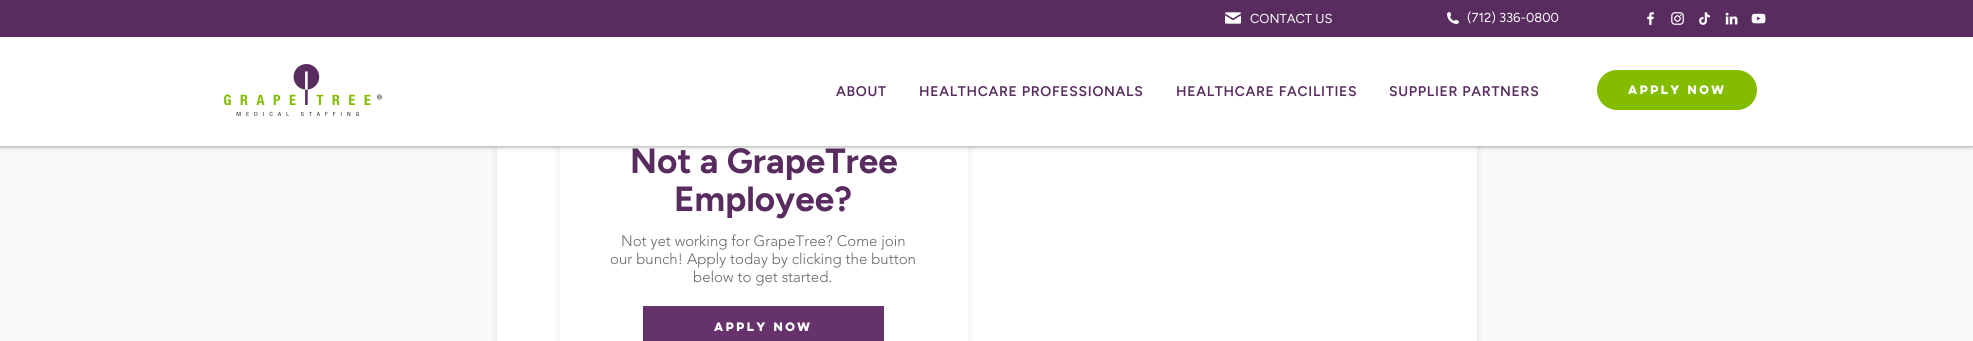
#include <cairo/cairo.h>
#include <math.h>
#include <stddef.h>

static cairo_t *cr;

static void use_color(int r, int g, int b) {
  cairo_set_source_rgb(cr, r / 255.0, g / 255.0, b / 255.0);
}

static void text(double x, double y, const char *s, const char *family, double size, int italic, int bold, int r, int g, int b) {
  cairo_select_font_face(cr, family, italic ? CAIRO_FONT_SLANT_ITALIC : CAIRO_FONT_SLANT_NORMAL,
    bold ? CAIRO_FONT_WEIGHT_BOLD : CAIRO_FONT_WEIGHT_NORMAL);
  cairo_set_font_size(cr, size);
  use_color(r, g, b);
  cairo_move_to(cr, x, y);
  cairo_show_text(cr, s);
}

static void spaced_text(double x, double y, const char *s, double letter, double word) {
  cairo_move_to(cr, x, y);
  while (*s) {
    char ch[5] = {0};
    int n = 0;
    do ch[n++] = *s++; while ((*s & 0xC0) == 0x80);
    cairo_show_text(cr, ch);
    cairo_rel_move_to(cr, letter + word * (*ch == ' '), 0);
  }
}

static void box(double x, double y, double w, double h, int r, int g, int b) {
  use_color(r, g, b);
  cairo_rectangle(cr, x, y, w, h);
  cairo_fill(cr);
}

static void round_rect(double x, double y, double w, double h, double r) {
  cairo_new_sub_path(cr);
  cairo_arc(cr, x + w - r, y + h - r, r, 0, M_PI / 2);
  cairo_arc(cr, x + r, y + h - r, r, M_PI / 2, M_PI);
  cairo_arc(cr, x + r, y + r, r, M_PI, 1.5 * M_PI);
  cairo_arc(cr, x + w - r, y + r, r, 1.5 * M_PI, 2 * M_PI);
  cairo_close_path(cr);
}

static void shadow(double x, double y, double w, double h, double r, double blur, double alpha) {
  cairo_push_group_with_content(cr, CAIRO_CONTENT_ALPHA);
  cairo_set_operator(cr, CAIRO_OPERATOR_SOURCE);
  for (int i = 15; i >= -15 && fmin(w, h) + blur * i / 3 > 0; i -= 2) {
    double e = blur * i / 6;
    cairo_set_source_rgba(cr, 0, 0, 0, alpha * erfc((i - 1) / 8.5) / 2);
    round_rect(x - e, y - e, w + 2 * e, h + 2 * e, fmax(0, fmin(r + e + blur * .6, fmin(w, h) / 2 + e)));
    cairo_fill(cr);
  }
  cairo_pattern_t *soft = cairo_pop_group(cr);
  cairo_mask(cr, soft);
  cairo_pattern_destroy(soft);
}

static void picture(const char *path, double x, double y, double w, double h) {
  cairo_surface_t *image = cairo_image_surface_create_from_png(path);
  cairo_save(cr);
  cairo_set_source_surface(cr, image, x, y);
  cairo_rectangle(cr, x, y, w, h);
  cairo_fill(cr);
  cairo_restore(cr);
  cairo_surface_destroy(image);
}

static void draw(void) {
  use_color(250, 250, 250);
  cairo_paint(cr);
  use_color(0, 0, 0);
  shadow(497, -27, 980, 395, 15, 4, 0.1);
  box(497, 146, 980, 195, 255, 255, 255);
  use_color(0, 0, 0);
  shadow(560, 102, 408, 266, 15, 4, 0.1);
  box(560, 146, 408, 195, 255, 255, 255);
  use_color(0, 0, 0);
  shadow(0, 0, 1973, 146, 0, 2.5, 0.5);
  box(0, 37, 1973, 109, 255, 255, 255);
  box(0, 0, 1973, 37, 88, 44, 95);
  picture("img_01.png", 1225, 12, 16, 12);
  picture("img_02.png", 1447, 12, 12, 12);
  picture("img_03.png", 1647, 12, 7, 13);
  picture("img_04.png", 1671, 12, 13, 13);
  picture("img_05.png", 1698, 12, 13, 13);
  picture("img_06.png", 1725, 12, 13, 13);
  picture("img_07.png", 1751, 13, 15, 11);
  picture("img_08.png", 224, 64, 158, 52);
  use_color(132, 189, 0);
  round_rect(1597, 70, 160, 40, 20);
  cairo_fill(cr);
  box(643, 306, 241, 35, 101, 50, 108);
  text(1250, 23, "CONTACT US", "Figtree", 13, 0, 0, 255, 255, 255);
  text(1467, 22, "(712) 336-0800", "Figtree", 13, 0, 0, 255, 255, 255);
  cairo_select_font_face(cr, "Figtree SemiBold", CAIRO_FONT_SLANT_NORMAL, CAIRO_FONT_WEIGHT_NORMAL);
  cairo_set_font_size(cr, 14);
  use_color(88, 44, 95);
  spaced_text(836, 96, "ABOUT", 0.7, 0);
  spaced_text(919, 96, "HEALTHCARE PROFESSIONALS", 0.7, 0);
  spaced_text(1176, 96, "HEALTHCARE FACILITIES", 0.7, 0);
  spaced_text(1389, 96, "SUPPLIER PARTNERS", 0.7, 0);
  text(1628, 94, "APPLY NOW", "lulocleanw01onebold", 11, 0, 1, 255, 255, 255);
  text(630, 173, "Not a GrapeTree", "Figtree", 35, 0, 1, 88, 44, 95);
  text(674, 211, "Employee?", "Figtree", 35, 0, 1, 88, 44, 95);
  text(621, 246, "Not yet working for GrapeTree? Come join", "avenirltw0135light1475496 Light", 15, 0, 0, 102, 102, 102);
  text(610, 264, "our bunch! Apply today by clicking the button", "avenirltw0135light1475496 Light", 15, 0, 0, 102, 102, 102);
  text(693, 282, "below to get started.", "avenirltw0135light1475496 Light", 15, 0, 0, 102, 102, 102);
  text(714, 331, "APPLY NOW", "lulocleanw01onebold", 11, 0, 1, 255, 255, 255);
}

int main(void) {
  cairo_surface_t *surface = cairo_image_surface_create(CAIRO_FORMAT_RGB24, 1973, 341);
  cr = cairo_create(surface);
  cairo_font_options_t *options = cairo_font_options_create();
  cairo_font_options_set_hint_metrics(options, CAIRO_HINT_METRICS_OFF);
  cairo_font_options_set_hint_style(options, CAIRO_HINT_STYLE_NONE);
  cairo_set_font_options(cr, options);
  cairo_set_miter_limit(cr, 4);
  draw();
  cairo_surface_write_to_png(surface, "out.png");
  cairo_font_options_destroy(options);
  cairo_destroy(cr);
  cairo_surface_destroy(surface);
  return 0;
}
